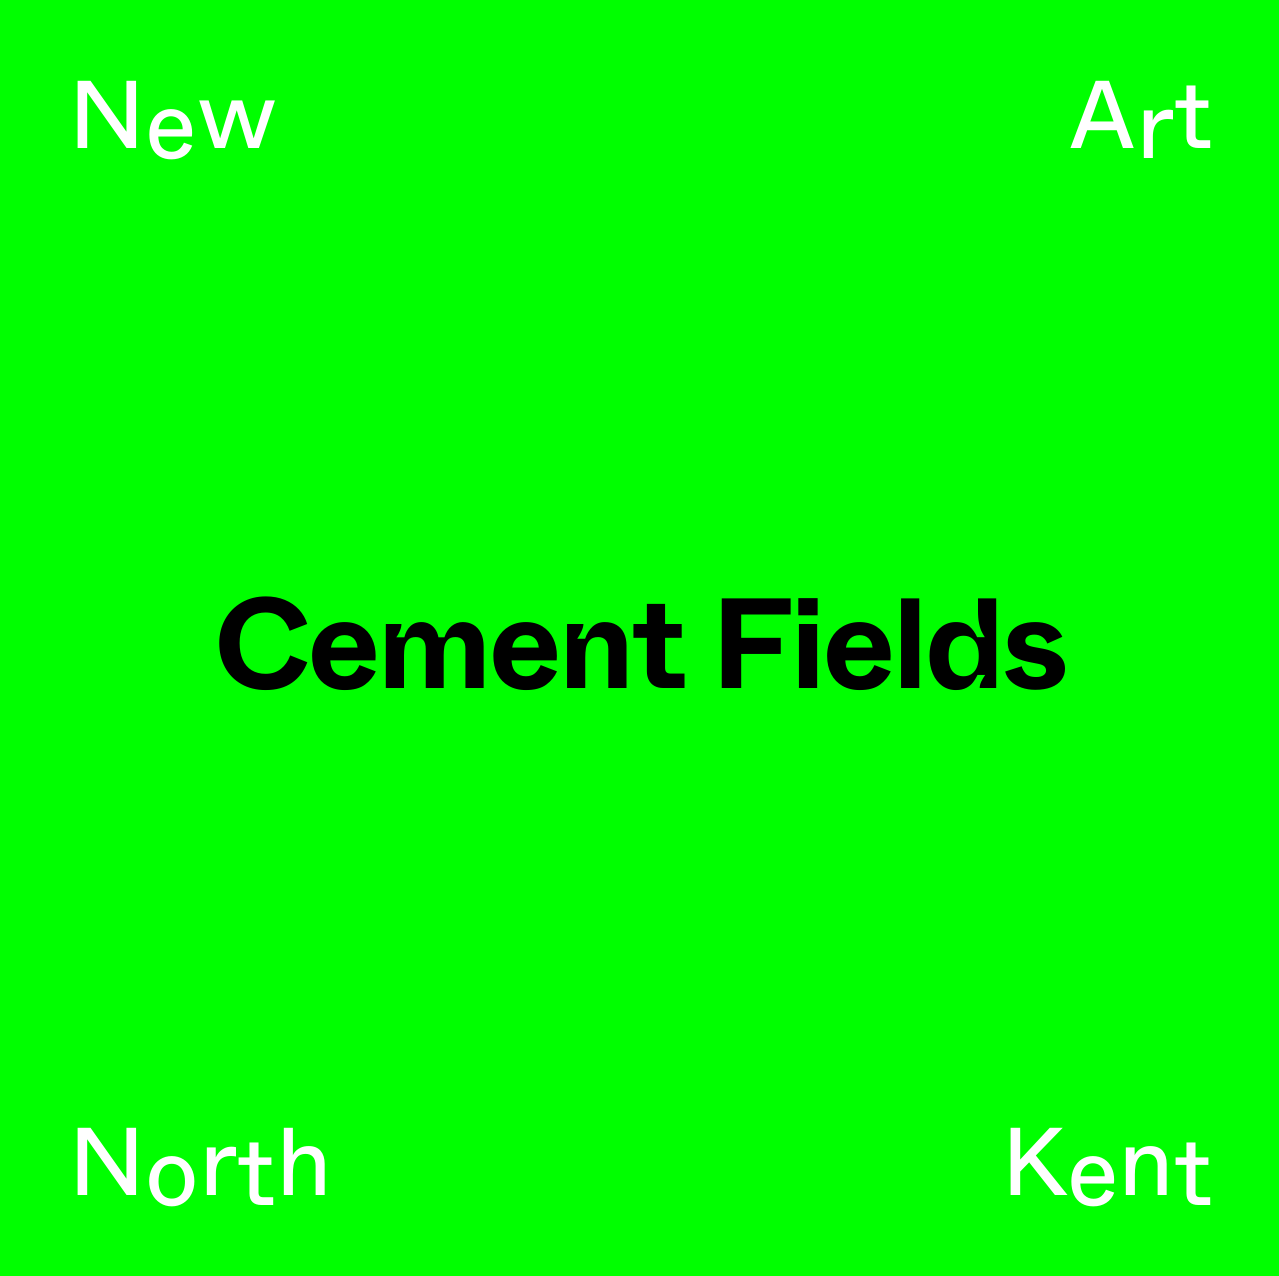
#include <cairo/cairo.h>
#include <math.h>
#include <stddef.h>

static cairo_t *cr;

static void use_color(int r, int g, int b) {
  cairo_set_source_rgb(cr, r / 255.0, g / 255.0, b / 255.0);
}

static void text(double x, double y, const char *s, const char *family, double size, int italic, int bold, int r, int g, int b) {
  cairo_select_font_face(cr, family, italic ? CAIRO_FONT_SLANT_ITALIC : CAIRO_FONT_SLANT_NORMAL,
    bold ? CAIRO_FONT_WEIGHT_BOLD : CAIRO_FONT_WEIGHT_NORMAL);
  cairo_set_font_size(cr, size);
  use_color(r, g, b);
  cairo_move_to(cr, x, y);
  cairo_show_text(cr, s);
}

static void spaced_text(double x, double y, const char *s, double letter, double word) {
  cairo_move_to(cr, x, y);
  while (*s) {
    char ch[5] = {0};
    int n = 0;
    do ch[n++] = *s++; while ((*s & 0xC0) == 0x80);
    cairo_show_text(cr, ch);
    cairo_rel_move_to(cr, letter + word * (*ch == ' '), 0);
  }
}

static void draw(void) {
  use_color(0, 255, 0);
  cairo_paint(cr);
  text(68, 148, "N", "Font", 96, 0, 0, 255, 255, 255);
  text(145, 158, "e", "Font", 96, 0, 0, 255, 255, 255);
  text(197, 148, "w", "Font", 96, 0, 0, 255, 255, 255);
  text(1069, 148, "A", "Font", 96, 0, 0, 255, 255, 255);
  text(1136, 158, "r", "Font", 96, 0, 0, 255, 255, 255);
  text(1174, 148, "t", "Font", 96, 0, 0, 255, 255, 255);
  cairo_select_font_face(cr, "Font", CAIRO_FONT_SLANT_NORMAL, CAIRO_FONT_WEIGHT_BOLD);
  cairo_set_font_size(cr, 128);
  use_color(0, 0, 0);
  spaced_text(214, 688, "Cement Fields", -3.25, 0);
  text(68, 1195, "N", "Font", 96, 0, 0, 255, 255, 255);
  text(145, 1205, "o", "Font", 96, 0, 0, 255, 255, 255);
  text(199, 1195, "r", "Font", 96, 0, 0, 255, 255, 255);
  text(237, 1205, "t", "Font", 96, 0, 0, 255, 255, 255);
  text(276, 1195, "h", "Font", 96, 0, 0, 255, 255, 255);
  text(1001, 1195, "K", "Font", 96, 0, 0, 255, 255, 255);
  text(1067, 1205, "e", "Font", 96, 0, 0, 255, 255, 255);
  text(1118, 1195, "n", "Font", 96, 0, 0, 255, 255, 255);
  text(1174, 1205, "t", "Font", 96, 0, 0, 255, 255, 255);
}

int main(void) {
  cairo_surface_t *surface = cairo_image_surface_create(CAIRO_FORMAT_RGB24, 1279, 1276);
  cr = cairo_create(surface);
  cairo_font_options_t *options = cairo_font_options_create();
  cairo_font_options_set_hint_metrics(options, CAIRO_HINT_METRICS_OFF);
  cairo_font_options_set_hint_style(options, CAIRO_HINT_STYLE_NONE);
  cairo_set_font_options(cr, options);
  cairo_set_miter_limit(cr, 4);
  draw();
  cairo_surface_write_to_png(surface, "out.png");
  cairo_font_options_destroy(options);
  cairo_destroy(cr);
  cairo_surface_destroy(surface);
  return 0;
}
